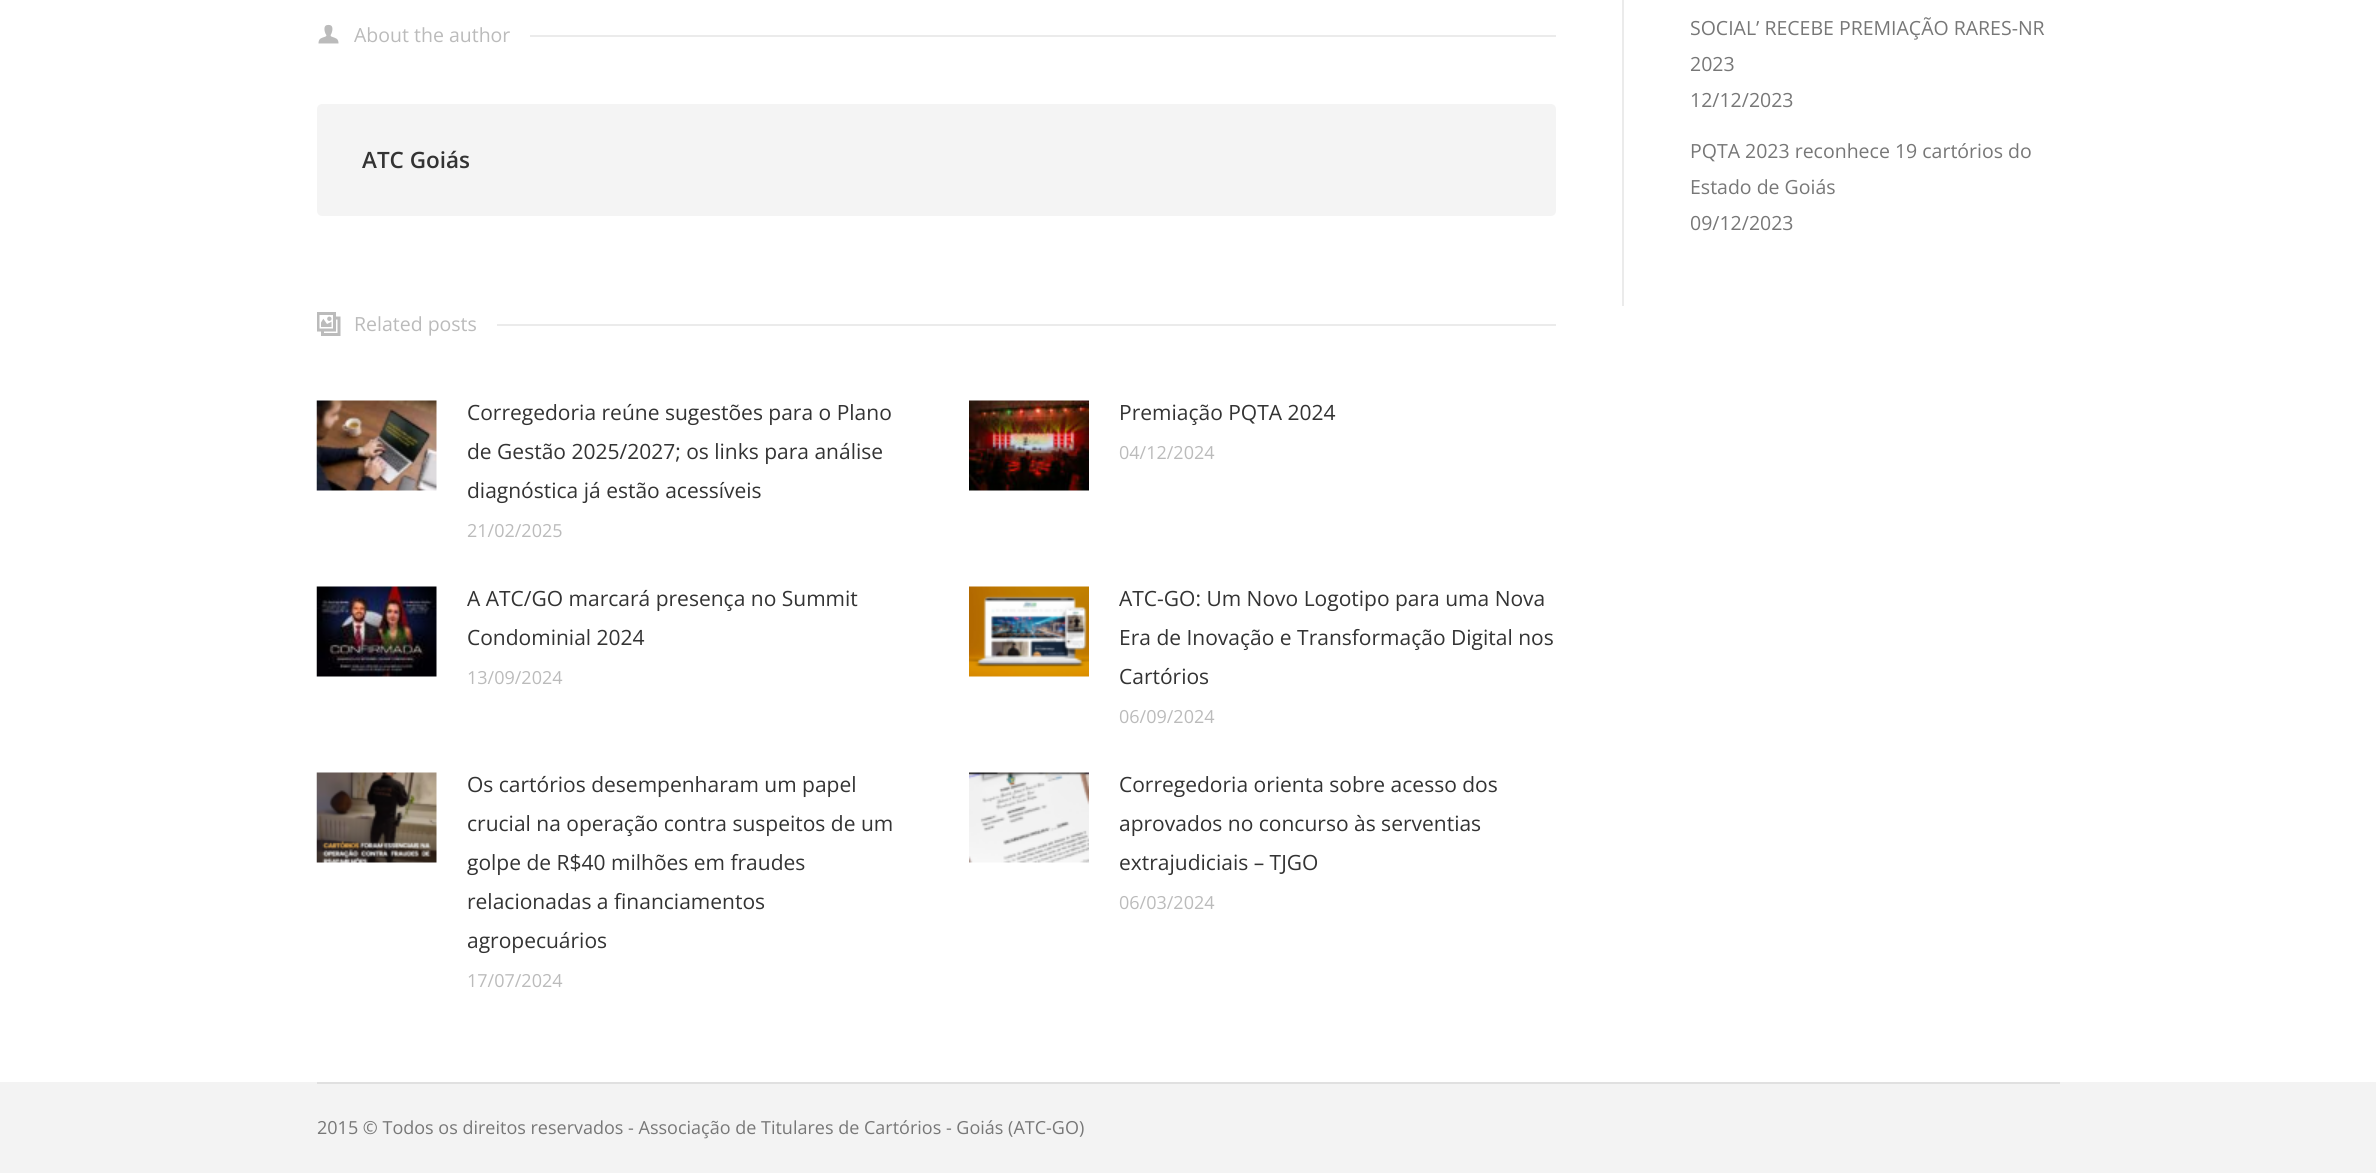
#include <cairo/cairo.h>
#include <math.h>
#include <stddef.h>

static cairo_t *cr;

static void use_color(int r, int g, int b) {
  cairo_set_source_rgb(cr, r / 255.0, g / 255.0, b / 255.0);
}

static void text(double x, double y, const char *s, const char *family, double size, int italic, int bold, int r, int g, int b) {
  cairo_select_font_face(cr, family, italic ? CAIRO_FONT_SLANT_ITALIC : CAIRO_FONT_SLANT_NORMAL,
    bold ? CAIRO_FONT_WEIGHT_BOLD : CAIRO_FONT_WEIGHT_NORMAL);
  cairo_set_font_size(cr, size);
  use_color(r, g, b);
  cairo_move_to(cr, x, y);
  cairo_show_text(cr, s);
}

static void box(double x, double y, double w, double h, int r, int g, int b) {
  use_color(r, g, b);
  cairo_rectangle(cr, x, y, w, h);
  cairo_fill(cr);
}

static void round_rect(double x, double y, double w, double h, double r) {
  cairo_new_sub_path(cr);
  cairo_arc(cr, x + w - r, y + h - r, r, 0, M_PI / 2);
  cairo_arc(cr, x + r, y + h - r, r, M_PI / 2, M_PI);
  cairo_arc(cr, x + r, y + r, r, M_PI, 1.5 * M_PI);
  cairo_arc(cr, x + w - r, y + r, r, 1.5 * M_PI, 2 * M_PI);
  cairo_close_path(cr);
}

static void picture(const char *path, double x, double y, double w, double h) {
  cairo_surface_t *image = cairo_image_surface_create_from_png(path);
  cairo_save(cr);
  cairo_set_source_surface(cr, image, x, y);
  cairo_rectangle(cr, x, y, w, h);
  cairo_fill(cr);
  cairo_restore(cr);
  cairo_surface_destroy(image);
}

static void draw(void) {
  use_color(255, 255, 255);
  cairo_paint(cr);
  picture("img_01.png", 318, 24, 21, 20);
  box(530, 35, 1026, 2, 235, 235, 235);
  use_color(244, 244, 244);
  round_rect(317, 104, 1239, 112, 5);
  cairo_fill(cr);
  picture("img_02.png", 317, 312, 24, 24);
  box(497, 324, 1059, 2, 235, 235, 235);
  picture("img_03.png", 316, 400, 121, 91);
  picture("img_04.png", 969, 400, 120, 91);
  picture("img_05.png", 316, 586, 121, 91);
  picture("img_06.png", 969, 586, 120, 91);
  picture("img_07.png", 316, 772, 121, 91);
  picture("img_08.png", 969, 772, 120, 91);
  box(1622, 0, 2, 306, 235, 235, 235);
  box(0, 1082, 2376, 91, 243, 243, 243);
  box(317, 1082, 1743, 2, 224, 224, 224);
  text(354, 42, "About the author", "Open Sans", 19.5, 0, 0, 187, 187, 187);
  text(362, 168, "ATC Goiás", "Open Sans SemiBold", 22.5, 0, 0, 51, 51, 51);
  text(354, 331, "Related posts", "Open Sans", 19.5, 0, 0, 187, 187, 187);
  text(467, 420, "Corregedoria reúne sugestões para o Plano", "Open Sans", 21, 0, 0, 51, 51, 51);
  text(467, 459, "de Gestão 2025/2027; os links para análise", "Open Sans", 21, 0, 0, 51, 51, 51);
  text(467, 498, "diagnóstica já estão acessíveis", "Open Sans", 21, 0, 0, 51, 51, 51);
  text(467, 537, "21/02/2025", "Open Sans", 18, 0, 0, 187, 187, 187);
  text(1119, 420, "Premiação PQTA 2024", "Open Sans", 21, 0, 0, 51, 51, 51);
  text(1119, 459, "04/12/2024", "Open Sans", 18, 0, 0, 187, 187, 187);
  text(467, 606, "A ATC/GO marcará presença no Summit", "Open Sans", 21, 0, 0, 51, 51, 51);
  text(467, 645, "Condominial 2024", "Open Sans", 21, 0, 0, 51, 51, 51);
  text(467, 684, "13/09/2024", "Open Sans", 18, 0, 0, 187, 187, 187);
  text(1119, 606, "ATC-GO: Um Novo Logotipo para uma Nova", "Open Sans", 21, 0, 0, 51, 51, 51);
  text(1119, 645, "Era de Inovação e Transformação Digital nos", "Open Sans", 21, 0, 0, 51, 51, 51);
  text(1119, 684, "Cartórios", "Open Sans", 21, 0, 0, 51, 51, 51);
  text(1119, 723, "06/09/2024", "Open Sans", 18, 0, 0, 187, 187, 187);
  text(467, 792, "Os cartórios desempenharam um papel", "Open Sans", 21, 0, 0, 51, 51, 51);
  text(467, 831, "crucial na operação contra suspeitos de um", "Open Sans", 21, 0, 0, 51, 51, 51);
  text(467, 870, "golpe de R$40 milhões em fraudes", "Open Sans", 21, 0, 0, 51, 51, 51);
  text(467, 909, "relacionadas a financiamentos", "Open Sans", 21, 0, 0, 51, 51, 51);
  text(467, 948, "agropecuários", "Open Sans", 21, 0, 0, 51, 51, 51);
  text(467, 987, "17/07/2024", "Open Sans", 18, 0, 0, 187, 187, 187);
  text(1119, 792, "Corregedoria orienta sobre acesso dos", "Open Sans", 21, 0, 0, 51, 51, 51);
  text(1119, 831, "aprovados no concurso às serventias", "Open Sans", 21, 0, 0, 51, 51, 51);
  text(1119, 870, "extrajudiciais – TJGO", "Open Sans", 21, 0, 0, 51, 51, 51);
  text(1119, 909, "06/03/2024", "Open Sans", 18, 0, 0, 187, 187, 187);
  text(1690, 35, "SOCIAL’ RECEBE PREMIAÇÃO RARES-NR", "Open Sans", 19.5, 0, 0, 119, 119, 119);
  text(1690, 71, "2023", "Open Sans", 19.5, 0, 0, 119, 119, 119);
  text(1690, 107, "12/12/2023", "Open Sans", 19.5, 0, 0, 119, 119, 119);
  text(1690, 158, "PQTA 2023 reconhece 19 cartórios do", "Open Sans", 19.5, 0, 0, 119, 119, 119);
  text(1690, 194, "Estado de Goiás", "Open Sans", 19.5, 0, 0, 119, 119, 119);
  text(1690, 230, "09/12/2023", "Open Sans", 19.5, 0, 0, 119, 119, 119);
  text(317, 1134, "2015 © Todos os direitos reservados - Associação de Titulares de Cartórios - Goiás (ATC-GO)", "Open Sans", 18, 0, 0, 119, 119, 119);
}

int main(void) {
  cairo_surface_t *surface = cairo_image_surface_create(CAIRO_FORMAT_RGB24, 2376, 1173);
  cr = cairo_create(surface);
  cairo_font_options_t *options = cairo_font_options_create();
  cairo_font_options_set_hint_metrics(options, CAIRO_HINT_METRICS_OFF);
  cairo_font_options_set_hint_style(options, CAIRO_HINT_STYLE_NONE);
  cairo_set_font_options(cr, options);
  cairo_set_miter_limit(cr, 4);
  draw();
  cairo_surface_write_to_png(surface, "out.png");
  cairo_font_options_destroy(options);
  cairo_destroy(cr);
  cairo_surface_destroy(surface);
  return 0;
}
